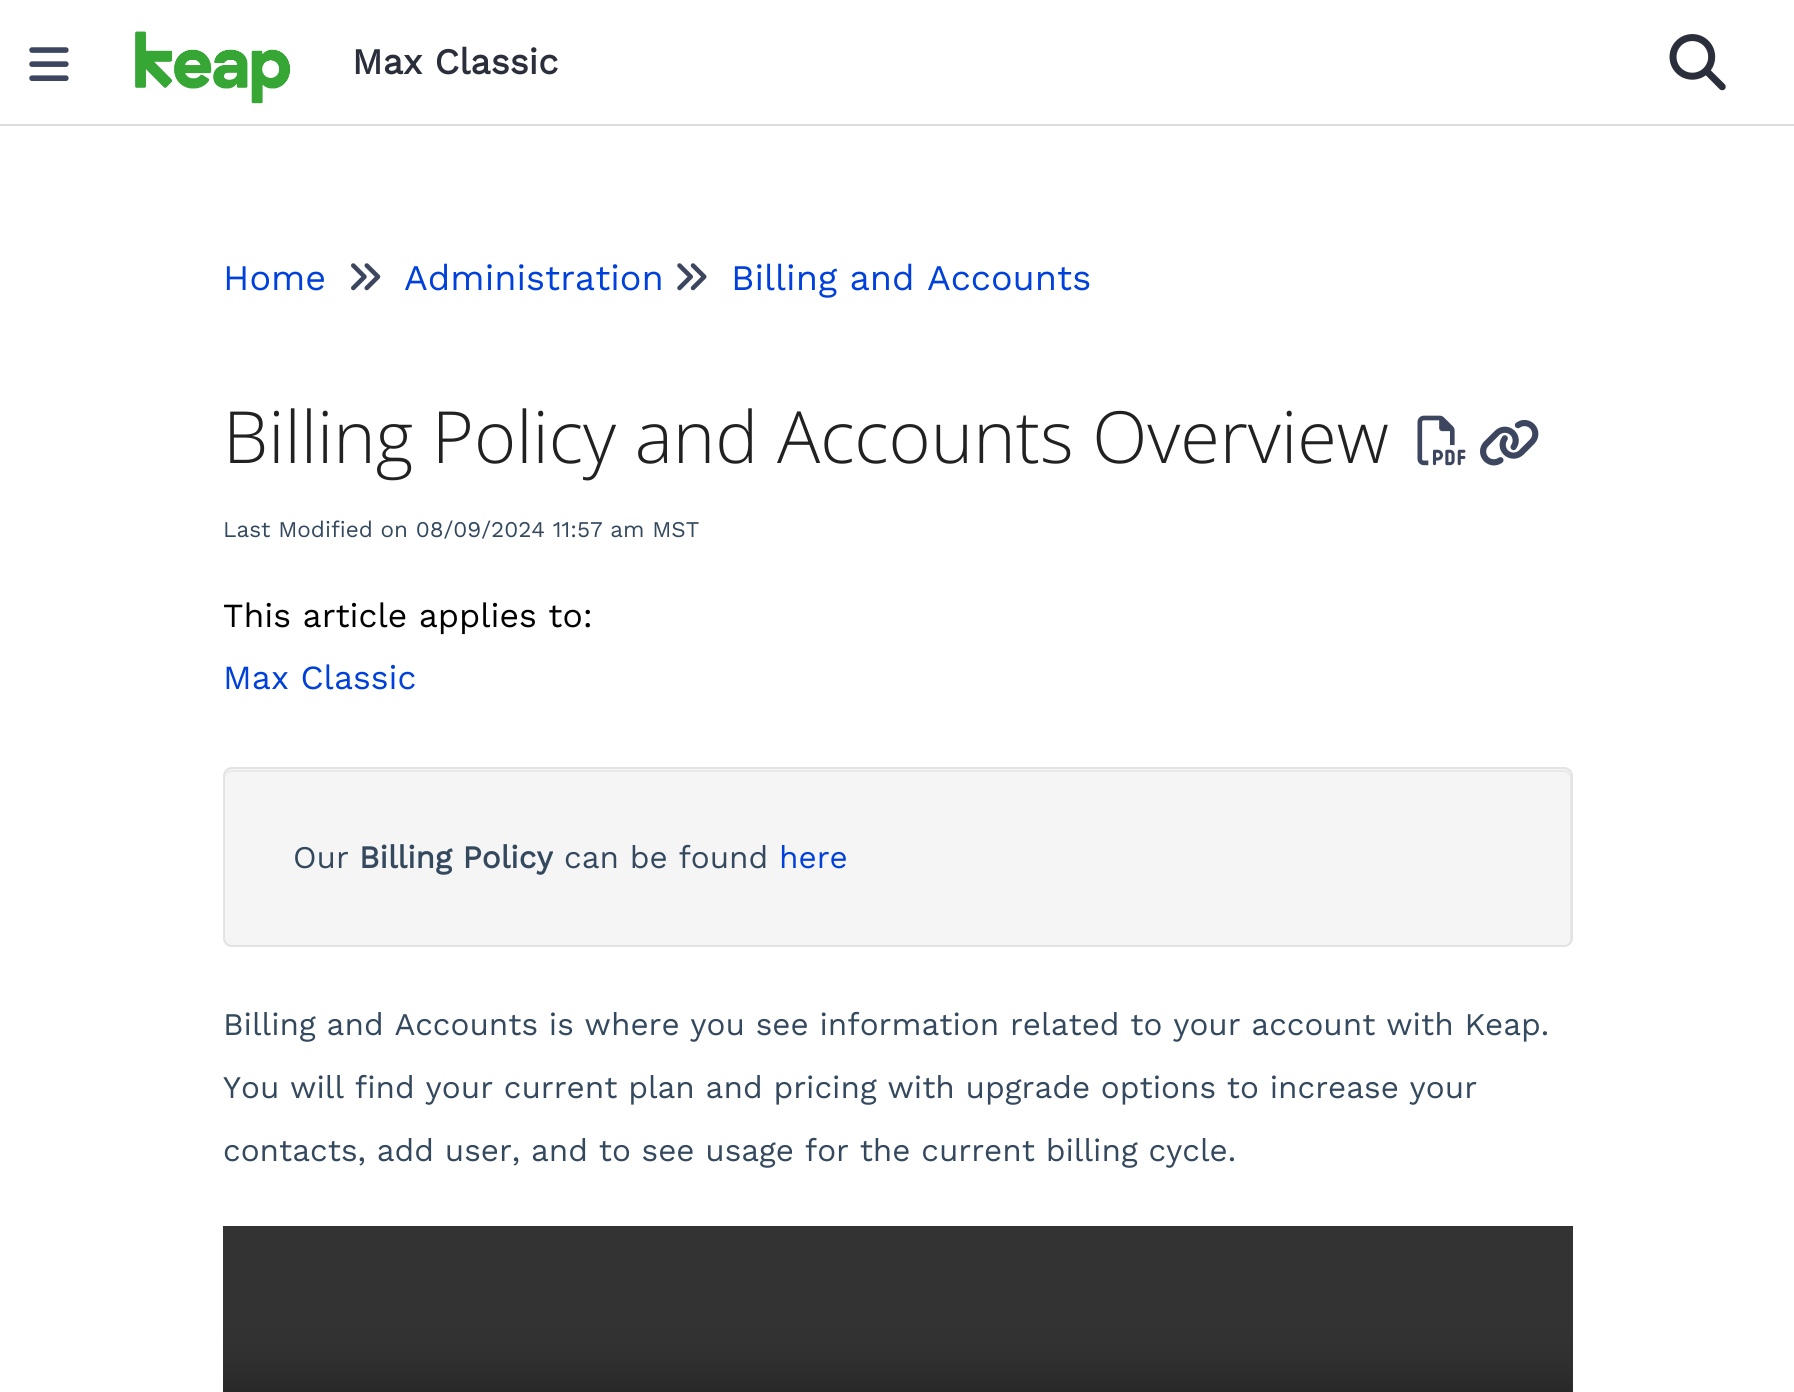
#include <cairo/cairo.h>
#include <math.h>
#include <stddef.h>

static cairo_t *cr;

static void use_color(int r, int g, int b) {
  cairo_set_source_rgb(cr, r / 255.0, g / 255.0, b / 255.0);
}

static void text(double x, double y, const char *s, const char *family, double size, int italic, int bold, int r, int g, int b) {
  cairo_select_font_face(cr, family, italic ? CAIRO_FONT_SLANT_ITALIC : CAIRO_FONT_SLANT_NORMAL,
    bold ? CAIRO_FONT_WEIGHT_BOLD : CAIRO_FONT_WEIGHT_NORMAL);
  cairo_set_font_size(cr, size);
  use_color(r, g, b);
  cairo_move_to(cr, x, y);
  cairo_show_text(cr, s);
}

static void box(double x, double y, double w, double h, int r, int g, int b) {
  use_color(r, g, b);
  cairo_rectangle(cr, x, y, w, h);
  cairo_fill(cr);
}

static void round_rect(double x, double y, double w, double h, double r) {
  cairo_new_sub_path(cr);
  cairo_arc(cr, x + w - r, y + h - r, r, 0, M_PI / 2);
  cairo_arc(cr, x + r, y + h - r, r, M_PI / 2, M_PI);
  cairo_arc(cr, x + r, y + r, r, M_PI, 1.5 * M_PI);
  cairo_arc(cr, x + w - r, y + r, r, 1.5 * M_PI, 2 * M_PI);
  cairo_close_path(cr);
}

static void picture(const char *path, double x, double y, double w, double h) {
  cairo_surface_t *image = cairo_image_surface_create_from_png(path);
  cairo_save(cr);
  cairo_set_source_surface(cr, image, x, y);
  cairo_rectangle(cr, x, y, w, h);
  cairo_fill(cr);
  cairo_restore(cr);
  cairo_surface_destroy(image);
}

static void draw(void) {
  use_color(255, 255, 255);
  cairo_paint(cr);
  box(0, 124, 1794, 2, 221, 221, 221);
  picture("img_01.png", 29, 47, 40, 34);
  picture("img_02.png", 135, 31, 156, 73);
  picture("img_03.png", 1669, 34, 57, 57);
  picture("img_04.png", 351, 263, 30, 28);
  picture("img_05.png", 677, 263, 30, 28);
  picture("img_06.png", 1417, 415, 49, 51);
  picture("img_07.png", 1480, 420, 59, 46);
  use_color(245, 245, 245);
  round_rect(223, 767, 1350, 180, 9);
  cairo_fill(cr);
  use_color(233, 233, 233);
  cairo_new_path(cr);
  cairo_move_to(cr, 232, 772);
  cairo_line_to(cr, 1564, 772);
  cairo_curve_to(cr, 1567, 772, 1570, 775, 1570, 778);
  cairo_line_to(cr, 1570, 942);
  cairo_curve_to(cr, 1571, 941, 1571, 939, 1571, 938);
  cairo_line_to(cr, 1571, 777);
  cairo_curve_to(cr, 1571, 773, 1568, 770, 1564, 770);
  cairo_line_to(cr, 232, 770);
  cairo_curve_to(cr, 228, 770, 225, 773, 225, 777);
  cairo_line_to(cr, 225, 778);
  cairo_curve_to(cr, 225, 775, 228, 772, 232, 772);
  cairo_close_path(cr);
  cairo_fill(cr);
  round_rect(224, 768, 1348, 178, 8);
  use_color(227, 227, 227);
  cairo_stroke(cr);
  picture("img_08.png", 223, 1226, 1350, 166);
  text(352, 74, "Max Classic", "Work Sans", 36, 0, 1, 43, 47, 59);
  text(223, 290, "Home", "Work Sans", 36, 0, 0, 0, 64, 219);
  text(404, 290, "Administration", "Work Sans", 36, 0, 0, 0, 64, 219);
  text(731, 290, "Billing and Accounts", "Work Sans", 36, 0, 0, 0, 64, 219);
  text(223, 463, "Billing Policy and Accounts Overview", "Open Sans Light", 72, 0, 0, 33, 33, 33);
  text(223, 537, "Last Modified on 08/09/2024 11:57 am MST", "Work Sans", 22.5, 0, 0, 52, 73, 94);
  text(223, 627, "This article applies to:", "Work Sans", 33.75, 0, 0, 0, 0, 0);
  text(223, 689, "Max Classic", "Work Sans", 33.75, 0, 0, 0, 64, 219);
  text(293, 868, "Our", "Work Sans", 31.5, 0, 0, 52, 73, 94);
  text(359, 868, "Billing Policy", "Work Sans", 31.5, 0, 1, 52, 73, 94);
  text(564, 868, "can be found", "Work Sans", 31.5, 0, 0, 52, 73, 94);
  text(779, 868, "here", "Work Sans", 31.5, 0, 0, 0, 64, 219);
  text(223, 1035, "Billing and Accounts is where you see information related to your account with Keap.", "Work Sans", 31.5, 0, 0, 52, 73, 94);
  text(223, 1098, "You will find your current plan and pricing with upgrade options to increase your", "Work Sans", 31.5, 0, 0, 52, 73, 94);
  text(223, 1161, "contacts, add user, and to see usage for the current billing cycle.", "Work Sans", 31.5, 0, 0, 52, 73, 94);
}

int main(void) {
  cairo_surface_t *surface = cairo_image_surface_create(CAIRO_FORMAT_RGB24, 1794, 1392);
  cr = cairo_create(surface);
  cairo_font_options_t *options = cairo_font_options_create();
  cairo_font_options_set_hint_metrics(options, CAIRO_HINT_METRICS_OFF);
  cairo_font_options_set_hint_style(options, CAIRO_HINT_STYLE_NONE);
  cairo_set_font_options(cr, options);
  cairo_set_miter_limit(cr, 4);
  draw();
  cairo_surface_write_to_png(surface, "out.png");
  cairo_font_options_destroy(options);
  cairo_destroy(cr);
  cairo_surface_destroy(surface);
  return 0;
}
